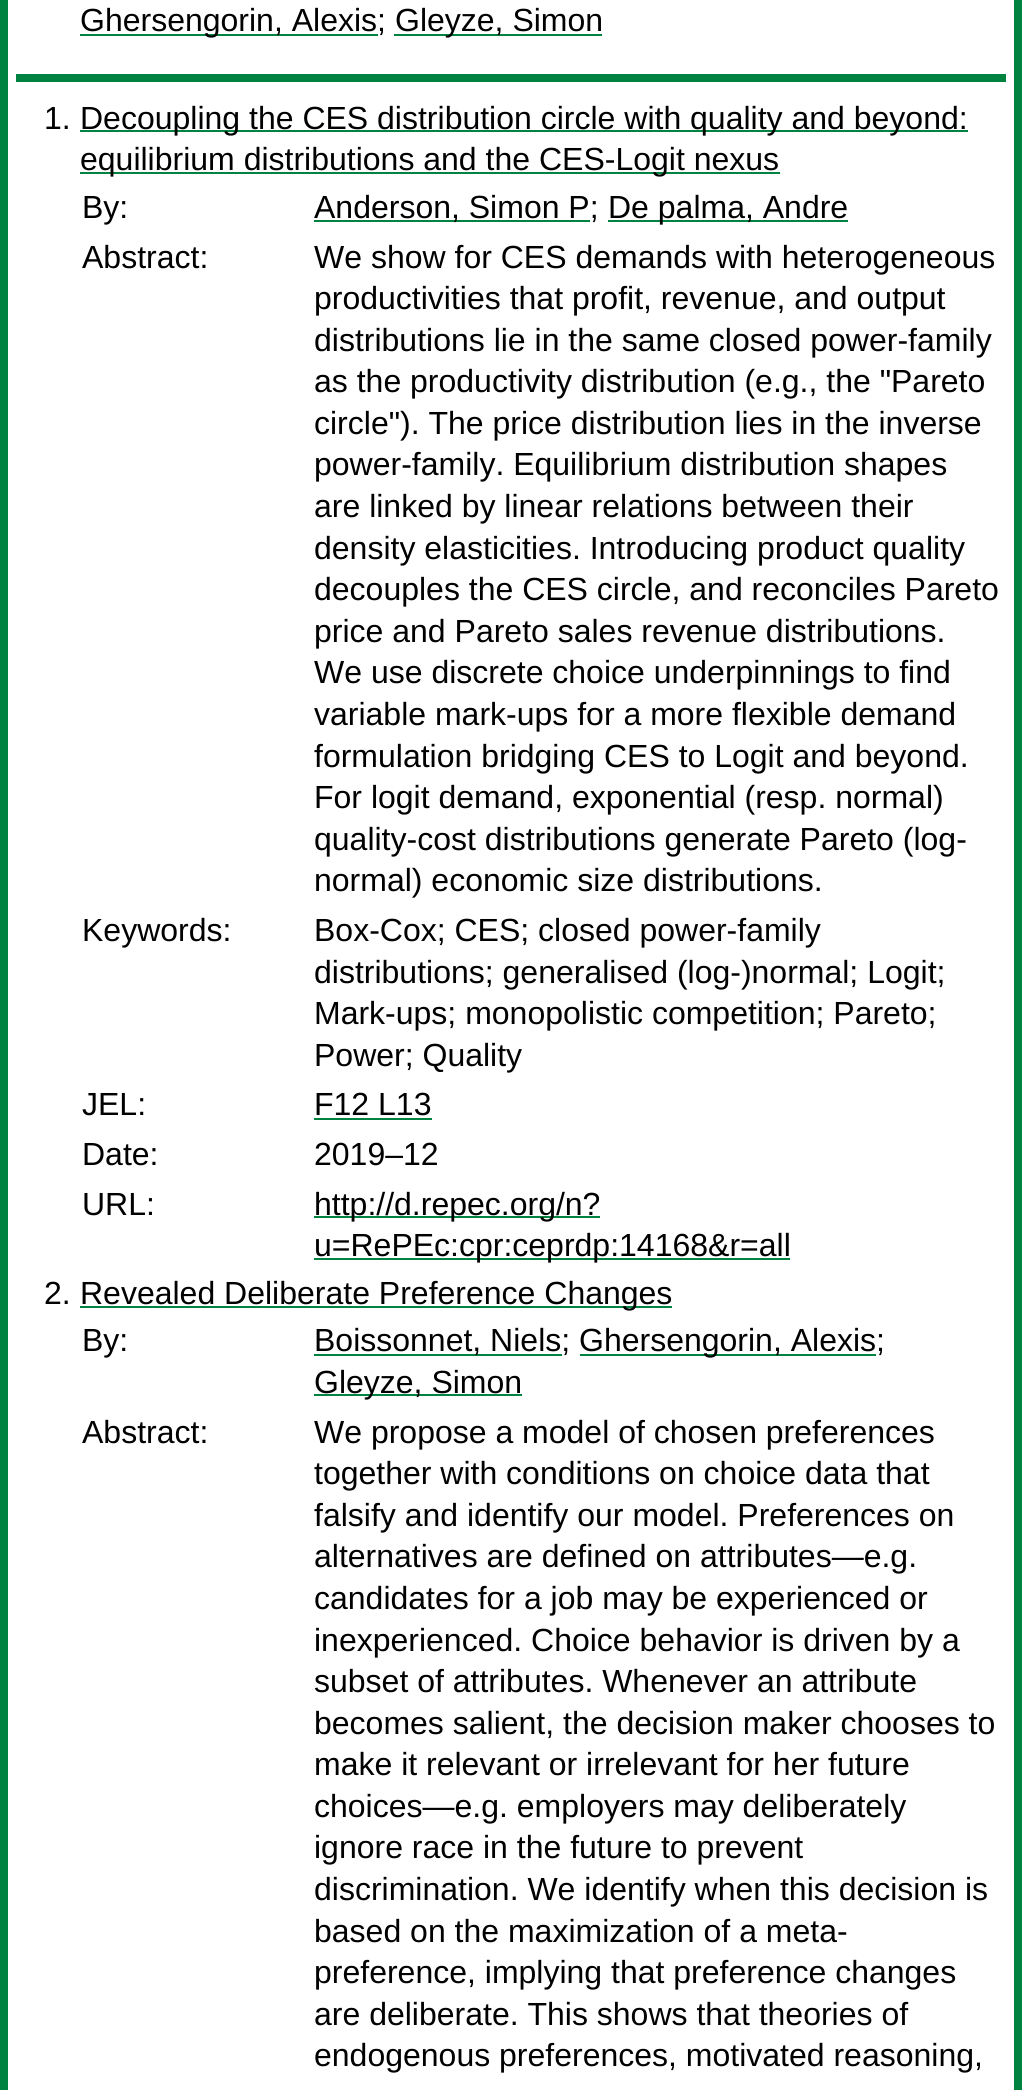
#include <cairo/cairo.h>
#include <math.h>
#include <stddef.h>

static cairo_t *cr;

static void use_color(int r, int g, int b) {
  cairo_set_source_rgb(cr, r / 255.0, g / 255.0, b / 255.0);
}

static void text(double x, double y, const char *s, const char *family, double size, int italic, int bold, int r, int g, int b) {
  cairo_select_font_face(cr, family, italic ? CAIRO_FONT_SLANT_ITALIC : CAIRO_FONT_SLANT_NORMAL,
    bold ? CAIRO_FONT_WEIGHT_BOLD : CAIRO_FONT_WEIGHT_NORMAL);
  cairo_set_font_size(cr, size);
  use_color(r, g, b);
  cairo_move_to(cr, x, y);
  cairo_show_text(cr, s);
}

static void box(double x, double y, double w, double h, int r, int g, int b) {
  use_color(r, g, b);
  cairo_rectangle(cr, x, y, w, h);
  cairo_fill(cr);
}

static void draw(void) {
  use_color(255, 255, 255);
  cairo_paint(cr);
  cairo_rectangle(cr, 4, -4, 1014, 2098);
  use_color(0, 130, 65);
  cairo_set_line_width(cr, 8);
  cairo_stroke(cr);
  box(80, 34, 298, 2, 0, 130, 65);
  box(394, 34, 208, 2, 0, 130, 65);
  box(16, 74, 990, 8, 0, 130, 65);
  box(80, 130, 888, 2, 0, 130, 65);
  box(80, 172, 700, 2, 0, 130, 65);
  box(314, 220, 276, 2, 0, 130, 65);
  box(608, 220, 240, 2, 0, 130, 65);
  box(314, 1118, 118, 2, 0, 130, 65);
  box(314, 1216, 286, 2, 0, 130, 65);
  box(314, 1258, 476, 2, 0, 130, 65);
  box(80, 1306, 592, 2, 0, 130, 65);
  box(314, 1354, 248, 2, 0, 130, 65);
  box(580, 1354, 296, 2, 0, 130, 65);
  box(314, 1394, 208, 2, 0, 130, 65);
  text(80, 31, "Ghersengorin, Alexis;", "Liberation Sans", 32, 0, 0, 0, 0, 0);
  text(395, 31, "Gleyze, Simon", "Liberation Sans", 32, 0, 0, 0, 0, 0);
  text(44, 129, "1.", "Liberation Sans", 32, 0, 0, 0, 0, 0);
  text(80, 129, "Decoupling the CES distribution circle with quality and beyond:", "Liberation Sans", 32, 0, 0, 0, 0, 0);
  text(80, 170, "equilibrium distributions and the CES-Logit nexus", "Liberation Sans", 32, 0, 0, 0, 0, 0);
  text(82, 218, "By:", "Liberation Sans", 32, 0, 0, 0, 0, 0);
  text(314, 218, "Anderson, Simon P;", "Liberation Sans", 32, 0, 0, 0, 0, 0);
  text(608, 218, "De palma, Andre", "Liberation Sans", 32, 0, 0, 0, 0, 0);
  text(82, 268, "Abstract:", "Liberation Sans", 32, 0, 0, 0, 0, 0);
  text(314, 268, "We show for CES demands with heterogeneous", "Liberation Sans", 32, 0, 0, 0, 0, 0);
  text(314, 309, "productivities that profit, revenue, and output", "Liberation Sans", 32, 0, 0, 0, 0, 0);
  text(314, 351, "distributions lie in the same closed power-family", "Liberation Sans", 32, 0, 0, 0, 0, 0);
  text(314, 392, "as the productivity distribution (e.g., the \"Pareto", "Liberation Sans", 32, 0, 0, 0, 0, 0);
  text(314, 434, "circle\"). The price distribution lies in the inverse", "Liberation Sans", 32, 0, 0, 0, 0, 0);
  text(314, 475, "power-family. Equilibrium distribution shapes", "Liberation Sans", 32, 0, 0, 0, 0, 0);
  text(314, 517, "are linked by linear relations between their", "Liberation Sans", 32, 0, 0, 0, 0, 0);
  text(314, 559, "density elasticities. Introducing product quality", "Liberation Sans", 32, 0, 0, 0, 0, 0);
  text(314, 600, "decouples the CES circle, and reconciles Pareto", "Liberation Sans", 32, 0, 0, 0, 0, 0);
  text(314, 642, "price and Pareto sales revenue distributions.", "Liberation Sans", 32, 0, 0, 0, 0, 0);
  text(314, 683, "We use discrete choice underpinnings to find", "Liberation Sans", 32, 0, 0, 0, 0, 0);
  text(314, 725, "variable mark-ups for a more flexible demand", "Liberation Sans", 32, 0, 0, 0, 0, 0);
  text(314, 767, "formulation bridging CES to Logit and beyond.", "Liberation Sans", 32, 0, 0, 0, 0, 0);
  text(314, 808, "For logit demand, exponential (resp. normal)", "Liberation Sans", 32, 0, 0, 0, 0, 0);
  text(314, 850, "quality-cost distributions generate Pareto (log-", "Liberation Sans", 32, 0, 0, 0, 0, 0);
  text(314, 891, "normal) economic size distributions.", "Liberation Sans", 32, 0, 0, 0, 0, 0);
  text(82, 941, "Keywords:", "Liberation Sans", 32, 0, 0, 0, 0, 0);
  text(314, 941, "Box-Cox; CES; closed power-family", "Liberation Sans", 32, 0, 0, 0, 0, 0);
  text(314, 983, "distributions; generalised (log-)normal; Logit;", "Liberation Sans", 32, 0, 0, 0, 0, 0);
  text(314, 1024, "Mark-ups; monopolistic competition; Pareto;", "Liberation Sans", 32, 0, 0, 0, 0, 0);
  text(314, 1066, "Power; Quality", "Liberation Sans", 32, 0, 0, 0, 0, 0);
  text(82, 1115, "JEL:", "Liberation Sans", 32, 0, 0, 0, 0, 0);
  text(314, 1115, "F12 L13", "Liberation Sans", 32, 0, 0, 0, 0, 0);
  text(82, 1165, "Date:", "Liberation Sans", 32, 0, 0, 0, 0, 0);
  text(314, 1165, "2019–12", "Liberation Sans", 32, 0, 0, 0, 0, 0);
  text(82, 1215, "URL:", "Liberation Sans", 32, 0, 0, 0, 0, 0);
  text(314, 1215, "http://d.repec.org/n?", "Liberation Sans", 32, 0, 0, 0, 0, 0);
  text(314, 1256, "u=RePEc:cpr:ceprdp:14168&r=all", "Liberation Sans", 32, 0, 0, 0, 0, 0);
  text(44, 1304, "2.", "Liberation Sans", 32, 0, 0, 0, 0, 0);
  text(80, 1304, "Revealed Deliberate Preference Changes", "Liberation Sans", 32, 0, 0, 0, 0, 0);
  text(82, 1351, "By:", "Liberation Sans", 32, 0, 0, 0, 0, 0);
  text(314, 1351, "Boissonnet, Niels;", "Liberation Sans", 32, 0, 0, 0, 0, 0);
  text(579, 1351, "Ghersengorin, Alexis;", "Liberation Sans", 32, 0, 0, 0, 0, 0);
  text(314, 1393, "Gleyze, Simon", "Liberation Sans", 32, 0, 0, 0, 0, 0);
  text(82, 1443, "Abstract:", "Liberation Sans", 32, 0, 0, 0, 0, 0);
  text(314, 1443, "We propose a model of chosen preferences", "Liberation Sans", 32, 0, 0, 0, 0, 0);
  text(314, 1484, "together with conditions on choice data that", "Liberation Sans", 32, 0, 0, 0, 0, 0);
  text(314, 1526, "falsify and identify our model. Preferences on", "Liberation Sans", 32, 0, 0, 0, 0, 0);
  text(314, 1567, "alternatives are defined on attributes—e.g.", "Liberation Sans", 32, 0, 0, 0, 0, 0);
  text(314, 1609, "candidates for a job may be experienced or", "Liberation Sans", 32, 0, 0, 0, 0, 0);
  text(314, 1651, "inexperienced. Choice behavior is driven by a", "Liberation Sans", 32, 0, 0, 0, 0, 0);
  text(314, 1692, "subset of attributes. Whenever an attribute", "Liberation Sans", 32, 0, 0, 0, 0, 0);
  text(314, 1734, "becomes salient, the decision maker chooses to", "Liberation Sans", 32, 0, 0, 0, 0, 0);
  text(314, 1775, "make it relevant or irrelevant for her future", "Liberation Sans", 32, 0, 0, 0, 0, 0);
  text(314, 1817, "choices—e.g. employers may deliberately", "Liberation Sans", 32, 0, 0, 0, 0, 0);
  text(314, 1858, "ignore race in the future to prevent", "Liberation Sans", 32, 0, 0, 0, 0, 0);
  text(314, 1900, "discrimination. We identify when this decision is", "Liberation Sans", 32, 0, 0, 0, 0, 0);
  text(314, 1942, "based on the maximization of a meta-", "Liberation Sans", 32, 0, 0, 0, 0, 0);
  text(314, 1983, "preference, implying that preference changes", "Liberation Sans", 32, 0, 0, 0, 0, 0);
  text(314, 2025, "are deliberate. This shows that theories of", "Liberation Sans", 32, 0, 0, 0, 0, 0);
  text(314, 2066, "endogenous preferences, motivated reasoning,", "Liberation Sans", 32, 0, 0, 0, 0, 0);
}

int main(void) {
  cairo_surface_t *surface = cairo_image_surface_create(CAIRO_FORMAT_RGB24, 1022, 2090);
  cr = cairo_create(surface);
  cairo_font_options_t *options = cairo_font_options_create();
  cairo_font_options_set_hint_metrics(options, CAIRO_HINT_METRICS_OFF);
  cairo_font_options_set_hint_style(options, CAIRO_HINT_STYLE_NONE);
  cairo_set_font_options(cr, options);
  cairo_set_miter_limit(cr, 4);
  draw();
  cairo_surface_write_to_png(surface, "out.png");
  cairo_font_options_destroy(options);
  cairo_destroy(cr);
  cairo_surface_destroy(surface);
  return 0;
}
